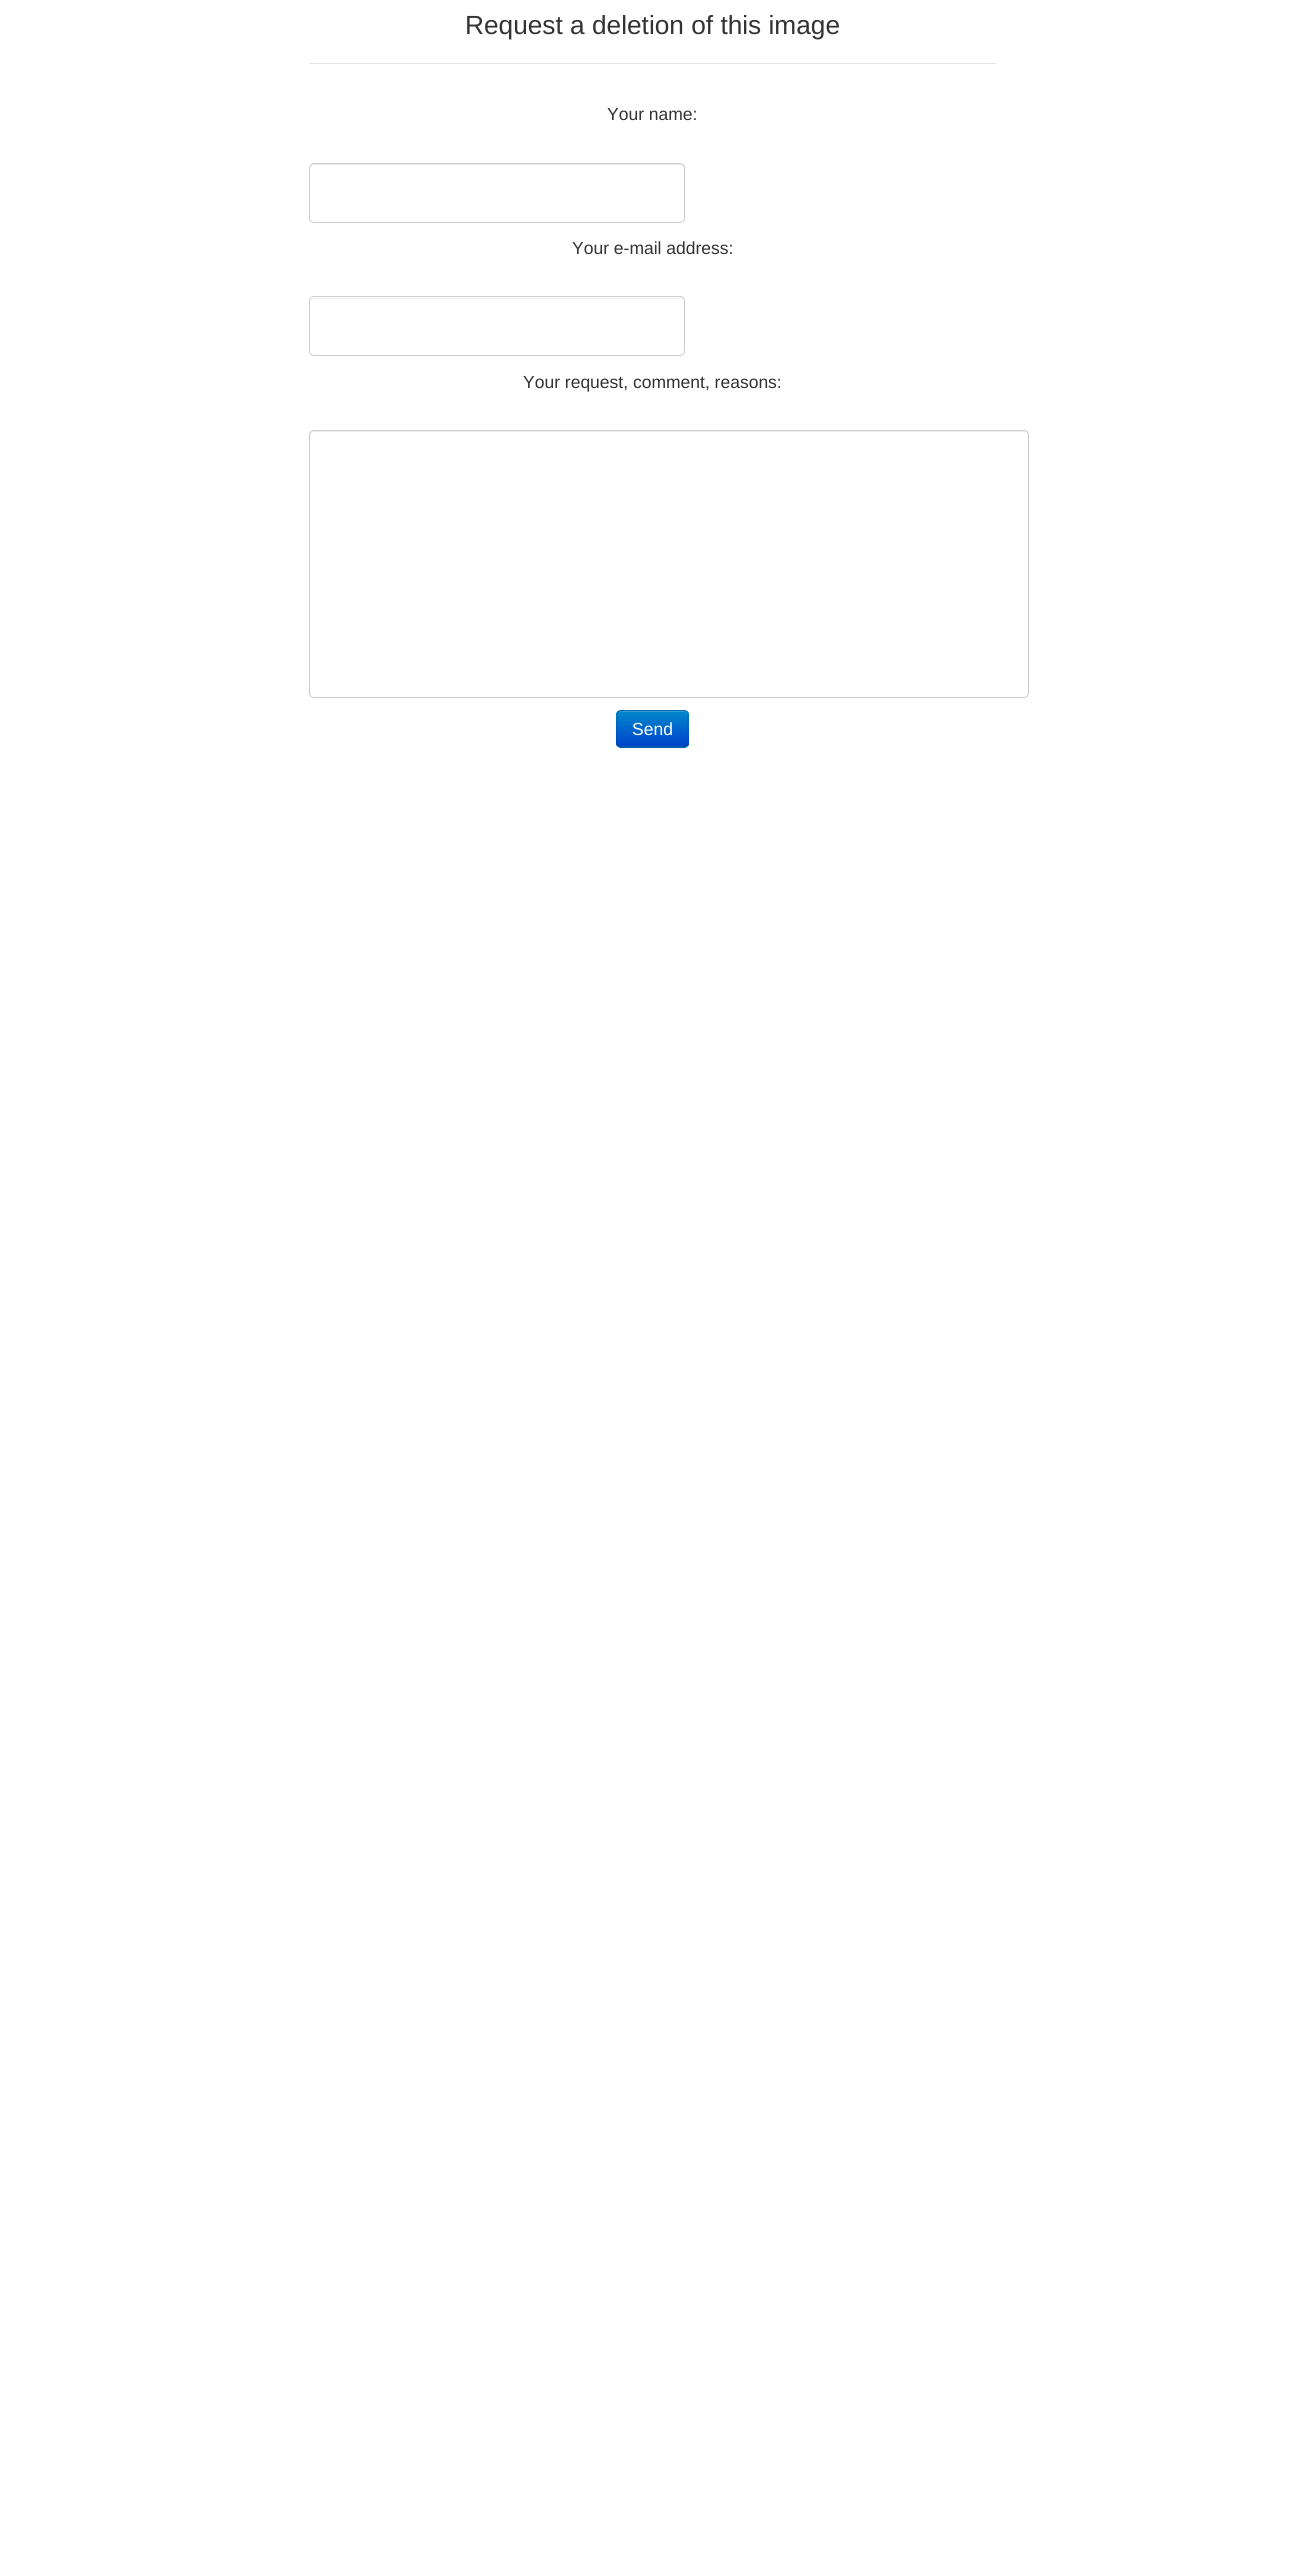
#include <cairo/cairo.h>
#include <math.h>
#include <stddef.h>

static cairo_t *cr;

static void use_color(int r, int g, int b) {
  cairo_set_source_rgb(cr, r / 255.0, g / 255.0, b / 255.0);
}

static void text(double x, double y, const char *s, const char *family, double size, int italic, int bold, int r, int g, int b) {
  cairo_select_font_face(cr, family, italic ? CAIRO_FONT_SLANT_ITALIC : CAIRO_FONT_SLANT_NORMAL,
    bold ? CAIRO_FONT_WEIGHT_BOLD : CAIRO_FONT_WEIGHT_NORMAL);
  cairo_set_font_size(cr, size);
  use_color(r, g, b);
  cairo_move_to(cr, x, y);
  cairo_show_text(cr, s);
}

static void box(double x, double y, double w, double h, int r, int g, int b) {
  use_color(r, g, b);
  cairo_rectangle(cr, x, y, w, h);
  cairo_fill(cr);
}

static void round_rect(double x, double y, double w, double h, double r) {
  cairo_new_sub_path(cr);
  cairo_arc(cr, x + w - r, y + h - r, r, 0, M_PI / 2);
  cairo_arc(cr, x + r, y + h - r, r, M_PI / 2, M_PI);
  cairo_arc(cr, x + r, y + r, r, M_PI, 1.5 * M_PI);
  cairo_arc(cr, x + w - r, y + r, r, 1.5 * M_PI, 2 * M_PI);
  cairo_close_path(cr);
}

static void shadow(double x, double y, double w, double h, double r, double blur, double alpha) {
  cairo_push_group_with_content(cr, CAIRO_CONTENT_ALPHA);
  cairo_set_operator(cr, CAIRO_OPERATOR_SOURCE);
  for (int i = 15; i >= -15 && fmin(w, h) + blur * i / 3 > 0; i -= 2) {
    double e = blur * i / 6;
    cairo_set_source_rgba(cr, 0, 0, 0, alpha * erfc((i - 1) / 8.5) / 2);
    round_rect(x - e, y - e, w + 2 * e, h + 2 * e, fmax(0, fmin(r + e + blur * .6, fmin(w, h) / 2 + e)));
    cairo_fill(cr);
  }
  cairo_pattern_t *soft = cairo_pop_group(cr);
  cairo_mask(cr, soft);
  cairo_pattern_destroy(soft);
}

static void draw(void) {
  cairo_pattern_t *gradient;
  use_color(255, 255, 255);
  cairo_paint(cr);
  box(309, 63, 687, 1, 229, 229, 229);
  use_color(236, 236, 236);
  cairo_new_path(cr);
  cairo_move_to(cr, 314, 165);
  cairo_line_to(cr, 680, 165);
  cairo_curve_to(cr, 682, 165, 684, 167, 684, 169);
  cairo_curve_to(cr, 684, 166, 683, 164, 680, 164);
  cairo_line_to(cr, 314, 164);
  cairo_curve_to(cr, 311, 164, 310, 166, 310, 169);
  cairo_curve_to(cr, 310, 167, 312, 165, 314, 165);
  cairo_close_path(cr);
  cairo_fill(cr);
  round_rect(309.5, 163.5, 375, 59, 4.5);
  use_color(204, 204, 204);
  cairo_set_line_width(cr, 1);
  cairo_stroke(cr);
  use_color(236, 236, 236);
  cairo_new_path(cr);
  cairo_move_to(cr, 314, 299);
  cairo_line_to(cr, 680, 299);
  cairo_curve_to(cr, 682, 299, 684, 300, 684, 302);
  cairo_curve_to(cr, 684, 300, 682, 298, 680, 298);
  cairo_line_to(cr, 314, 298);
  cairo_curve_to(cr, 312, 298, 310, 300, 310, 302);
  cairo_curve_to(cr, 310, 300, 312, 299, 314, 299);
  cairo_close_path(cr);
  cairo_fill(cr);
  round_rect(309.5, 296.5, 375, 59, 4.5);
  use_color(204, 204, 204);
  cairo_stroke(cr);
  use_color(236, 236, 236);
  cairo_new_path(cr);
  cairo_move_to(cr, 314, 432);
  cairo_line_to(cr, 1024, 432);
  cairo_curve_to(cr, 1026, 432, 1028, 434, 1028, 436);
  cairo_curve_to(cr, 1028, 433, 1027, 431, 1024, 431);
  cairo_line_to(cr, 314, 431);
  cairo_line_to(cr, 311, 432);
  cairo_line_to(cr, 310, 433);
  cairo_line_to(cr, 310, 436);
  cairo_curve_to(cr, 310, 434, 312, 432, 314, 432);
  cairo_close_path(cr);
  cairo_fill(cr);
  round_rect(309.5, 430.5, 719, 267, 4.5);
  use_color(204, 204, 204);
  cairo_stroke(cr);
  use_color(0, 0, 0);
  shadow(616, 711, 73, 38, 5, 1, 0.05);
  use_color(0, 109, 204);
  round_rect(616, 710, 73, 38, 5);
  cairo_fill(cr);
  cairo_save(cr);
  round_rect(616, 710, 73, 38, 5);
  cairo_clip(cr);
  gradient = cairo_pattern_create_linear(653, 711, 653, 746);
  cairo_pattern_add_color_stop_rgba(gradient, 0, 0, 0.533, 0.8, 1);
  cairo_pattern_add_color_stop_rgba(gradient, 1, 0, 0.267, 0.8, 1);
  cairo_set_source(cr, gradient);
  cairo_pattern_destroy(gradient);
  cairo_rectangle(cr, 616, 711, 73, 35);
  cairo_fill(cr);
  cairo_restore(cr);
  use_color(51, 159, 214);
  cairo_new_path(cr);
  cairo_move_to(cr, 621, 712);
  cairo_line_to(cr, 684, 712);
  cairo_curve_to(cr, 686, 712, 688, 714, 688, 716);
  cairo_curve_to(cr, 688, 709, 679, 711, 674, 711);
  cairo_line_to(cr, 632, 711);
  cairo_curve_to(cr, 627, 711, 618, 709, 618, 716);
  cairo_curve_to(cr, 618, 714, 619, 712, 621, 712);
  cairo_close_path(cr);
  cairo_fill(cr);
  cairo_new_path(cr);
  cairo_move_to(cr, 687, 745.5);
  cairo_line_to(cr, 684, 747);
  cairo_line_to(cr, 621, 747);
  cairo_line_to(cr, 618, 745.5);
  cairo_set_source_rgba(cr, 0, 0, 0, 0.25);
  cairo_set_line_width(cr, 1.2);
  cairo_stroke(cr);
  cairo_new_path(cr);
  cairo_move_to(cr, 618, 745.5);
  cairo_curve_to(cr, 616, 743.5, 617, 740.5, 617, 738);
  cairo_line_to(cr, 617, 729);
  cairo_curve_to(cr, 617, 710, 613.5, 710.5, 631.5, 710.5);
  cairo_line_to(cr, 673.5, 710.5);
  cairo_curve_to(cr, 691.5, 710.5, 688, 710, 688, 729);
  cairo_line_to(cr, 688, 738);
  cairo_curve_to(cr, 688, 740.5, 689, 743.5, 687, 745.5);
  cairo_set_source_rgba(cr, 0, 0, 0, 0.1);
  cairo_stroke(cr);
  text(465, 34, "Request a deletion of this image", "Liberation Sans", 26.25, 0, 0, 51, 51, 51);
  text(607, 120, "Your name:", "Liberation Sans", 17.5, 0, 0, 51, 51, 51);
  text(572, 254, "Your e-mail address:", "Liberation Sans", 17.5, 0, 0, 51, 51, 51);
  text(523, 388, "Your request, comment, reasons:", "Liberation Sans", 17.5, 0, 0, 51, 51, 51);
  text(632, 735, "Send", "Liberation Sans", 17.5, 0, 0, 255, 255, 255);
}

int main(void) {
  cairo_surface_t *surface = cairo_image_surface_create(CAIRO_FORMAT_RGB24, 1305, 2560);
  cr = cairo_create(surface);
  cairo_font_options_t *options = cairo_font_options_create();
  cairo_font_options_set_hint_metrics(options, CAIRO_HINT_METRICS_OFF);
  cairo_font_options_set_hint_style(options, CAIRO_HINT_STYLE_NONE);
  cairo_set_font_options(cr, options);
  cairo_set_miter_limit(cr, 4);
  draw();
  cairo_surface_write_to_png(surface, "out.png");
  cairo_font_options_destroy(options);
  cairo_destroy(cr);
  cairo_surface_destroy(surface);
  return 0;
}
